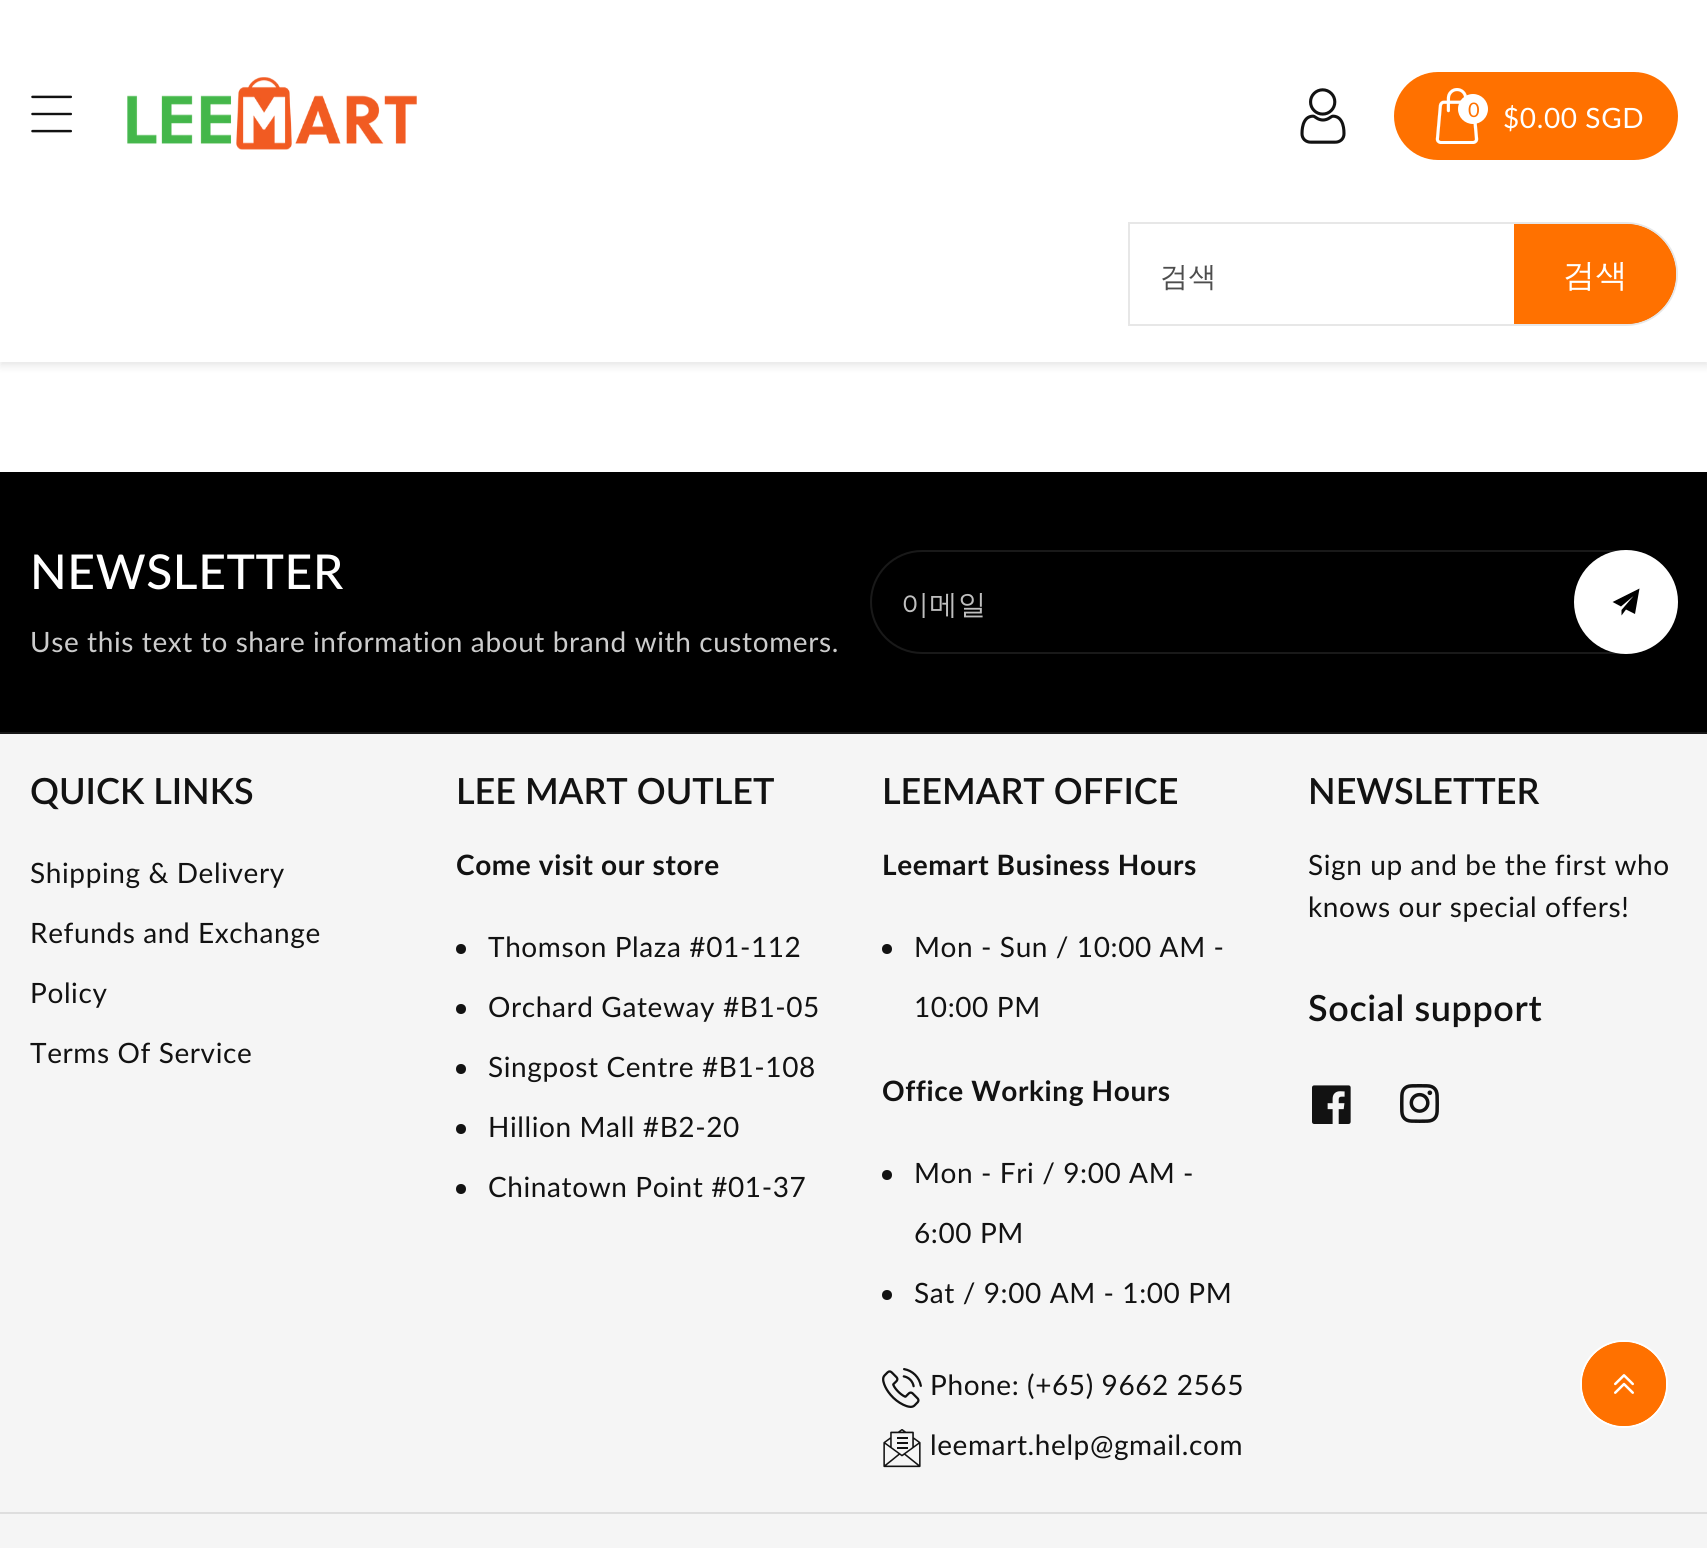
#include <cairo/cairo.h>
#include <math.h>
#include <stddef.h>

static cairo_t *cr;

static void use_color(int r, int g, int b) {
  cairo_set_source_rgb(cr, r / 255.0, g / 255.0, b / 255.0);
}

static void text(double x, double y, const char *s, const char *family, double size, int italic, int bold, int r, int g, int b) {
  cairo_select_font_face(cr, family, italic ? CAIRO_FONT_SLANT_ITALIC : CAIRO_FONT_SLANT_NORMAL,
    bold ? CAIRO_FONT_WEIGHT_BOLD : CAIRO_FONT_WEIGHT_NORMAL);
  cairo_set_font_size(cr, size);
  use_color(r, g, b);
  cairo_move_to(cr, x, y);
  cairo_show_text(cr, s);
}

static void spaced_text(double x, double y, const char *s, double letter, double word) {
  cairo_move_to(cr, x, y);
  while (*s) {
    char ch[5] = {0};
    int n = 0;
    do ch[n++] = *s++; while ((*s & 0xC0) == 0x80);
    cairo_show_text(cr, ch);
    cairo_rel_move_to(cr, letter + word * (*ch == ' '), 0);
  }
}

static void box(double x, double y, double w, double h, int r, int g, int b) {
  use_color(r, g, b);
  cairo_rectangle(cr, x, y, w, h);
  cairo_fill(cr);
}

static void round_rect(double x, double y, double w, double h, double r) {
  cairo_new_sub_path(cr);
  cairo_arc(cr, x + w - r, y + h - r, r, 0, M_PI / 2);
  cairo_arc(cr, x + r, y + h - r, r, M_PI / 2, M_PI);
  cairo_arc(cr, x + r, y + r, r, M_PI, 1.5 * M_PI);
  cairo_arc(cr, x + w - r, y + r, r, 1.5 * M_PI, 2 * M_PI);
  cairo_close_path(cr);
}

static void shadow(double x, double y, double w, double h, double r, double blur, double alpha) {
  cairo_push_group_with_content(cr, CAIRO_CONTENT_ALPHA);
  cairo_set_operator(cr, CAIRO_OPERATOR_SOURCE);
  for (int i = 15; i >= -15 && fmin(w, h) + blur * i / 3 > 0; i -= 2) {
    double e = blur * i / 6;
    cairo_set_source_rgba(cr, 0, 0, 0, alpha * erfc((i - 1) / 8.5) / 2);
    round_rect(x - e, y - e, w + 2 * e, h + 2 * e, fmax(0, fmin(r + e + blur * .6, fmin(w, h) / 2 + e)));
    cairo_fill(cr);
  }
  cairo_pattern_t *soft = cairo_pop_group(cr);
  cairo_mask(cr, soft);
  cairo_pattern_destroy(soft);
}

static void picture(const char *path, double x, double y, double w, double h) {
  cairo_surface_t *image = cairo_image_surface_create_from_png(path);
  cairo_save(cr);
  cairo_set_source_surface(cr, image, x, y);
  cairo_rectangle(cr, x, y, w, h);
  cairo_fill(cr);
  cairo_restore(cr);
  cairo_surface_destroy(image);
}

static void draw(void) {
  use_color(255, 255, 255);
  cairo_paint(cr);
  use_color(18, 18, 18);
  shadow(0, 4, 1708, 362, 0, 4, 0.1);
  box(0, 0, 1707, 362, 255, 255, 255);
  picture("img_01.png", 31, 95, 41, 38);
  picture("img_02.png", 127, 77, 290, 73);
  picture("img_03.png", 1300, 88, 46, 56);
  use_color(255, 113, 0);
  round_rect(1394, 72, 284, 88, 44);
  cairo_fill(cr);
  picture("img_04.png", 1435, 88, 44, 56);
  use_color(255, 255, 255);
  cairo_arc(cr, 1473, 109, 15, 0, 2 * M_PI);
  cairo_fill(cr);
  use_color(255, 113, 0);
  cairo_new_path(cr);
  cairo_move_to(cr, 1514, 224);
  cairo_line_to(cr, 1626, 224);
  cairo_curve_to(cr, 1653.5, 224, 1676, 246.5, 1676, 274);
  cairo_curve_to(cr, 1676, 301.5, 1653.5, 324, 1626, 324);
  cairo_line_to(cr, 1514, 324);
  cairo_close_path(cr);
  cairo_fill(cr);
  cairo_new_path(cr);
  cairo_move_to(cr, 1515, 225);
  cairo_line_to(cr, 1626, 225);
  cairo_curve_to(cr, 1653, 225, 1675, 247, 1675, 274);
  cairo_curve_to(cr, 1675, 301, 1653, 323, 1626, 323);
  cairo_line_to(cr, 1515, 323);
  cairo_close_path(cr);
  cairo_stroke(cr);
  cairo_new_path(cr);
  cairo_move_to(cr, 1129, 223);
  cairo_line_to(cr, 1626, 223);
  cairo_curve_to(cr, 1654, 223, 1677, 246, 1677, 274);
  cairo_curve_to(cr, 1677, 302, 1654, 325, 1626, 325);
  cairo_line_to(cr, 1129, 325);
  cairo_close_path(cr);
  cairo_set_source_rgba(cr, 0.071, 0.071, 0.071, 0.1);
  cairo_stroke(cr);
  box(0, 734, 1707, 814, 245, 245, 245);
  box(0, 472, 1707, 260, 0, 0, 0);
  box(0, 732, 1707, 2, 23, 23, 23);
  use_color(255, 255, 255);
  cairo_arc(cr, 1626, 602, 52, 0, 2 * M_PI);
  cairo_fill(cr);
  use_color(0, 0, 0);
  cairo_new_path(cr);
  cairo_move_to(cr, 1612.5, 602);
  cairo_line_to(cr, 1621, 606.5);
  cairo_line_to(cr, 1633.5, 596);
  cairo_line_to(cr, 1621.5, 610);
  cairo_line_to(cr, 1621.5, 615.5);
  cairo_line_to(cr, 1626, 609.5);
  cairo_line_to(cr, 1635, 614);
  cairo_line_to(cr, 1639.5, 588.5);
  cairo_close_path(cr);
  cairo_fill(cr);
  round_rect(871, 551, 806, 102, 51);
  cairo_set_source_rgba(cr, 1, 1, 1, 0.1);
  cairo_stroke(cr);
  use_color(18, 18, 18);
  cairo_arc(cr, 461, 949, 5, 0, 2 * M_PI);
  cairo_fill(cr);
  cairo_arc(cr, 461, 1009, 5, 0, 2 * M_PI);
  cairo_fill(cr);
  cairo_arc(cr, 461, 1069, 5, 0, 2 * M_PI);
  cairo_fill(cr);
  cairo_arc(cr, 461, 1129, 5, 0, 2 * M_PI);
  cairo_fill(cr);
  cairo_arc(cr, 461, 1189, 5, 0, 2 * M_PI);
  cairo_fill(cr);
  cairo_arc(cr, 887, 949, 5, 0, 2 * M_PI);
  cairo_fill(cr);
  cairo_arc(cr, 887, 1175, 5, 0, 2 * M_PI);
  cairo_fill(cr);
  cairo_arc(cr, 887, 1295, 5, 0, 2 * M_PI);
  cairo_fill(cr);
  picture("img_05.png", 882, 1368, 40, 40);
  picture("img_06.png", 883, 1429, 38, 39);
  picture("img_07.png", 1312, 1085, 39, 39);
  picture("img_08.png", 1400, 1084, 39, 39);
  use_color(255, 113, 0);
  cairo_arc(cr, 1624, 1384, 43, 0, 2 * M_PI);
  cairo_fill_preserve(cr);
  use_color(255, 255, 255);
  cairo_stroke(cr);
  picture("img_09.png", 1614, 1374, 20, 20);
  cairo_arc(cr, 1624, 1384, 41, 0, 2 * M_PI);
  use_color(255, 113, 0);
  cairo_stroke(cr);
  box(0, 1512, 1707, 2, 222, 222, 222);
  cairo_select_font_face(cr, "Lato", CAIRO_FONT_SLANT_NORMAL, CAIRO_FONT_WEIGHT_NORMAL);
  cairo_set_font_size(cr, 20);
  use_color(255, 113, 0);
  spaced_text(1468, 117, "0", 0.6, 0);
  cairo_set_font_size(cr, 28);
  use_color(255, 255, 255);
  spaced_text(1503, 128, "$0.00 SGD", 0.6, 0);
  cairo_select_font_face(cr, "WenQuanYi Zen Hei Medium", CAIRO_FONT_SLANT_NORMAL, CAIRO_FONT_WEIGHT_NORMAL);
  use_color(77, 77, 77);
  spaced_text(1160, 286, "검색", 0.6, 0);
  cairo_set_font_size(cr, 32);
  use_color(255, 255, 255);
  spaced_text(1563, 286, "검색", 0.6, 0);
  cairo_select_font_face(cr, "Lato Medium", CAIRO_FONT_SLANT_NORMAL, CAIRO_FONT_WEIGHT_NORMAL);
  cairo_set_font_size(cr, 48);
  spaced_text(30, 589, "NEWSLETTER", 0.6, 0);
  cairo_select_font_face(cr, "Lato", CAIRO_FONT_SLANT_NORMAL, CAIRO_FONT_WEIGHT_NORMAL);
  cairo_set_font_size(cr, 28);
  use_color(204, 204, 204);
  spaced_text(30, 652, "Use this text to share information about brand with customers.", 0.6, 0);
  cairo_select_font_face(cr, "WenQuanYi Zen Hei Medium", CAIRO_FONT_SLANT_NORMAL, CAIRO_FONT_WEIGHT_NORMAL);
  use_color(191, 191, 191);
  spaced_text(901, 614, "이메일", 0.6, 0);
  text(30, 804, "QUICK LINKS", "Lato SemiBold", 36, 0, 0, 18, 18, 18);
  cairo_select_font_face(cr, "Lato", CAIRO_FONT_SLANT_NORMAL, CAIRO_FONT_WEIGHT_NORMAL);
  cairo_set_font_size(cr, 28);
  spaced_text(30, 883, "Shipping & Delivery", 0.6, 0);
  spaced_text(30, 943, "Refunds and Exchange", 0.6, 0);
  spaced_text(30, 1003, "Policy", 0.6, 0);
  spaced_text(30, 1063, "Terms Of Service", 0.6, 0);
  text(456, 804, "LEE MART OUTLET", "Lato SemiBold", 36, 0, 0, 18, 18, 18);
  cairo_select_font_face(cr, "Lato", CAIRO_FONT_SLANT_NORMAL, CAIRO_FONT_WEIGHT_BOLD);
  cairo_set_font_size(cr, 28);
  spaced_text(456, 875, "Come visit our store", 0.6, 0);
  cairo_select_font_face(cr, "Lato", CAIRO_FONT_SLANT_NORMAL, CAIRO_FONT_WEIGHT_NORMAL);
  spaced_text(488, 957, "Thomson Plaza #01-112", 0.6, 0);
  spaced_text(488, 1017, "Orchard Gateway #B1-05", 0.6, 0);
  spaced_text(488, 1077, "Singpost Centre #B1-108", 0.6, 0);
  spaced_text(488, 1137, "Hillion Mall #B2-20", 0.6, 0);
  spaced_text(488, 1197, "Chinatown Point #01-37", 0.6, 0);
  text(882, 804, "LEEMART OFFICE", "Lato SemiBold", 36, 0, 0, 18, 18, 18);
  cairo_select_font_face(cr, "Lato", CAIRO_FONT_SLANT_NORMAL, CAIRO_FONT_WEIGHT_BOLD);
  cairo_set_font_size(cr, 28);
  spaced_text(882, 875, "Leemart Business Hours", 0.6, 0);
  cairo_select_font_face(cr, "Lato", CAIRO_FONT_SLANT_NORMAL, CAIRO_FONT_WEIGHT_NORMAL);
  spaced_text(914, 957, "Mon - Sun / 10:00 AM -", 0.6, 0);
  spaced_text(914, 1017, "10:00 PM", 0.6, 0);
  cairo_select_font_face(cr, "Lato", CAIRO_FONT_SLANT_NORMAL, CAIRO_FONT_WEIGHT_BOLD);
  spaced_text(882, 1101, "Office Working Hours", 0.6, 0);
  cairo_select_font_face(cr, "Lato", CAIRO_FONT_SLANT_NORMAL, CAIRO_FONT_WEIGHT_NORMAL);
  spaced_text(914, 1183, "Mon - Fri / 9:00 AM -", 0.6, 0);
  spaced_text(914, 1243, "6:00 PM", 0.6, 0);
  spaced_text(914, 1303, "Sat / 9:00 AM - 1:00 PM", 0.6, 0);
  spaced_text(930, 1395, "Phone: (+65) 9662 2565", 0.6, 0);
  spaced_text(930, 1455, "leemart.help@gmail.com", 0.6, 0);
  text(1308, 804, "NEWSLETTER", "Lato SemiBold", 36, 0, 0, 18, 18, 18);
  cairo_select_font_face(cr, "Lato", CAIRO_FONT_SLANT_NORMAL, CAIRO_FONT_WEIGHT_NORMAL);
  cairo_set_font_size(cr, 28);
  spaced_text(1308, 875, "Sign up and be the first who", 0.6, 0);
  spaced_text(1308, 917, "knows our special offers!", 0.6, 0);
  cairo_select_font_face(cr, "Lato SemiBold", CAIRO_FONT_SLANT_NORMAL, CAIRO_FONT_WEIGHT_NORMAL);
  cairo_set_font_size(cr, 36);
  spaced_text(1308, 1021, "Social support", 0.6, 0);
}

int main(void) {
  cairo_surface_t *surface = cairo_image_surface_create(CAIRO_FORMAT_RGB24, 1707, 1548);
  cr = cairo_create(surface);
  cairo_font_options_t *options = cairo_font_options_create();
  cairo_font_options_set_hint_metrics(options, CAIRO_HINT_METRICS_OFF);
  cairo_font_options_set_hint_style(options, CAIRO_HINT_STYLE_NONE);
  cairo_set_font_options(cr, options);
  cairo_set_miter_limit(cr, 4);
  draw();
  cairo_surface_write_to_png(surface, "out.png");
  cairo_font_options_destroy(options);
  cairo_destroy(cr);
  cairo_surface_destroy(surface);
  return 0;
}
